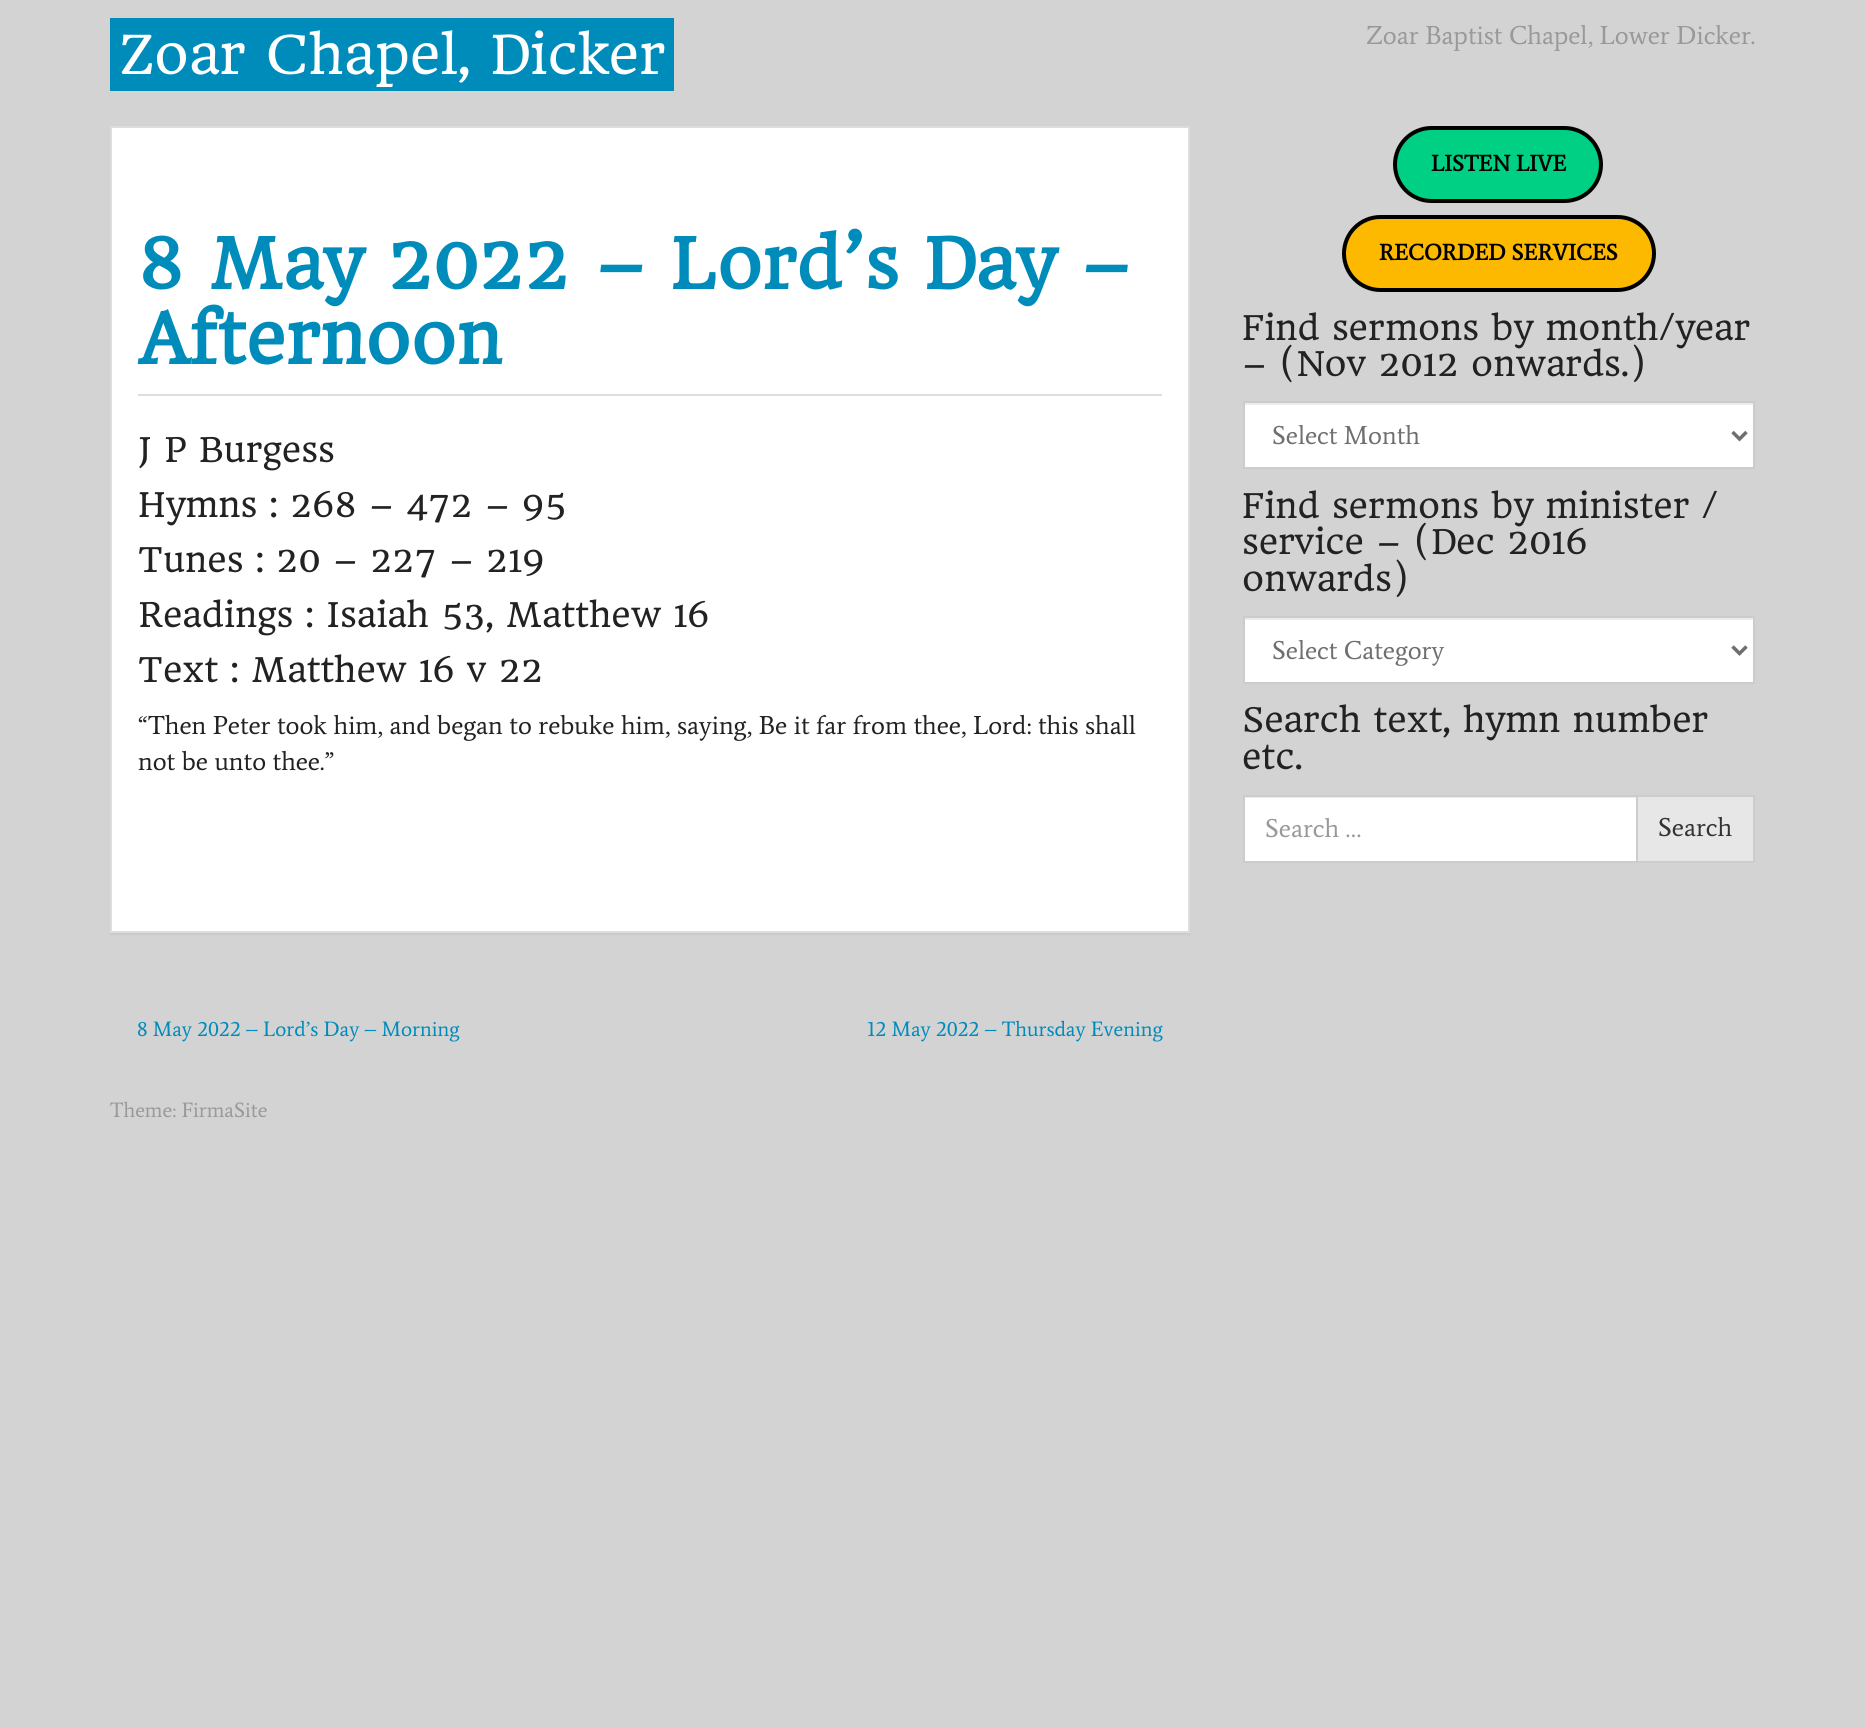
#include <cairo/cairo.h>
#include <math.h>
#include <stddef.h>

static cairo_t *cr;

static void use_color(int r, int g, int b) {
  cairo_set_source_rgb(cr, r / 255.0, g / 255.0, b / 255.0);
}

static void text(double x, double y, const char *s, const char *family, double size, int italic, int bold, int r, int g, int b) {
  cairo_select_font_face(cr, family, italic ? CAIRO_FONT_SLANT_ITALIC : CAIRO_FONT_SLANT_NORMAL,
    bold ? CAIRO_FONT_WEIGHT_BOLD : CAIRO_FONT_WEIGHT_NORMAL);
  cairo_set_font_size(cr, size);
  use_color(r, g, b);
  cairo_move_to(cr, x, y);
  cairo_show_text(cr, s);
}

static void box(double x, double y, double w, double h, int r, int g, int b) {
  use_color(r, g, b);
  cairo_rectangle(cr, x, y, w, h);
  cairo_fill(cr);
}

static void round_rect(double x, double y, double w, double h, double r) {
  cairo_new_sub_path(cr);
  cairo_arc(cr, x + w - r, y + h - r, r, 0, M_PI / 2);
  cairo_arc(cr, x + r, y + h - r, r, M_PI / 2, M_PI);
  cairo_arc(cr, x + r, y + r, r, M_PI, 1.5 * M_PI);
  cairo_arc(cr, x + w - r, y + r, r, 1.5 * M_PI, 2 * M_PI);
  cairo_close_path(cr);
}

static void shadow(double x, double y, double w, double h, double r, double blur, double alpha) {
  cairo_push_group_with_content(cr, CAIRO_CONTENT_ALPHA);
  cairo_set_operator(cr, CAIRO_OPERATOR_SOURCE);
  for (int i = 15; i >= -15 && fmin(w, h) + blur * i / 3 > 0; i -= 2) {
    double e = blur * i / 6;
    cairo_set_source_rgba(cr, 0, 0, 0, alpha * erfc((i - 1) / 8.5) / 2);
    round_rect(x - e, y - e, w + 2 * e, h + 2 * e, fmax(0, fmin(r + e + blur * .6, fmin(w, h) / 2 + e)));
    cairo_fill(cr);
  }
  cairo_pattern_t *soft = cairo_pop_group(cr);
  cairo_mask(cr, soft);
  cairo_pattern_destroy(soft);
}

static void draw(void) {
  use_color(211, 211, 212);
  cairo_paint(cr);
  box(110, 18, 564, 73, 0, 140, 186);
  use_color(0, 0, 0);
  shadow(110, 128, 1080, 807, 0, 1, 0.05);
  use_color(255, 255, 255);
  cairo_rectangle(cr, 111, 127, 1078, 805);
  cairo_fill_preserve(cr);
  use_color(221, 221, 221);
  cairo_stroke(cr);
  box(138, 394, 1024, 2, 221, 221, 221);
  use_color(0, 208, 132);
  round_rect(1395, 128, 206, 73, 36.5);
  cairo_fill_preserve(cr);
  use_color(0, 0, 0);
  cairo_set_line_width(cr, 4);
  cairo_stroke(cr);
  use_color(252, 185, 0);
  round_rect(1344, 217, 310, 73, 36.5);
  cairo_fill_preserve(cr);
  use_color(0, 0, 0);
  cairo_stroke(cr);
  box(1245, 405, 508, 62, 255, 255, 255);
  box(1244, 403, 510, 2, 236, 236, 236);
  cairo_rectangle(cr, 1244, 402, 510, 66);
  use_color(204, 204, 204);
  cairo_set_line_width(cr, 2);
  cairo_stroke(cr);
  cairo_new_path(cr);
  cairo_move_to(cr, 1732.5, 432);
  cairo_line_to(cr, 1739.5, 439);
  cairo_line_to(cr, 1746.5, 432);
  use_color(111, 111, 111);
  cairo_set_line_width(cr, 3.5);
  cairo_stroke(cr);
  box(1245, 620, 508, 62, 255, 255, 255);
  box(1244, 618, 510, 2, 236, 236, 236);
  cairo_rectangle(cr, 1244, 617, 510, 66);
  use_color(204, 204, 204);
  cairo_set_line_width(cr, 2);
  cairo_stroke(cr);
  cairo_new_path(cr);
  cairo_move_to(cr, 1732.5, 646.5);
  cairo_line_to(cr, 1739.5, 653.5);
  cairo_line_to(cr, 1746.5, 646.5);
  use_color(111, 111, 111);
  cairo_set_line_width(cr, 3.5);
  cairo_stroke(cr);
  box(1245, 798, 391, 63, 255, 255, 255);
  box(1244, 797, 392, 1, 236, 236, 236);
  cairo_rectangle(cr, 1244, 796, 393, 66);
  use_color(204, 204, 204);
  cairo_set_line_width(cr, 2);
  cairo_stroke(cr);
  use_color(231, 231, 231);
  cairo_rectangle(cr, 1637, 796, 117, 66);
  cairo_fill_preserve(cr);
  use_color(204, 204, 204);
  cairo_stroke(cr);
  text(119, 74, "Zoar Chapel, Dicker", "HeadlandOne", 52.5, 0, 0, 255, 255, 255);
  text(1366, 44, "Zoar Baptist Chapel, Lower Dicker.", "Average", 26.25, 0, 0, 153, 153, 153);
  text(138, 289, "8 May 2022 – Lord’s Day –", "HeadlandOne", 68.25, 0, 1, 0, 140, 186);
  text(138, 364, "Afternoon", "HeadlandOne", 68.25, 0, 1, 0, 140, 186);
  text(138, 462, "J P Burgess", "HeadlandOne", 33.25, 0, 0, 34, 34, 34);
  text(138, 517, "Hymns : 268 – 472 – 95", "HeadlandOne", 33.25, 0, 0, 34, 34, 34);
  text(138, 572, "Tunes : 20 – 227 – 219", "HeadlandOne", 33.25, 0, 0, 34, 34, 34);
  text(138, 627, "Readings : Isaiah 53, Matthew 16", "HeadlandOne", 33.25, 0, 0, 34, 34, 34);
  text(138, 682, "Text : Matthew 16 v 22", "HeadlandOne", 33.25, 0, 0, 34, 34, 34);
  text(138, 734, "“Then Peter took him, and began to rebuke him, saying, Be it far from thee, Lord: this shall", "Average", 26.25, 0, 0, 34, 34, 34);
  text(138, 770, "not be unto thee.”", "Average", 26.25, 0, 0, 34, 34, 34);
  text(137, 1036, "8 May 2022 – Lord’s Day – Morning", "Average", 21, 0, 0, 0, 140, 186);
  text(867, 1036, "12 May 2022 – Thursday Evening", "Average", 21, 0, 0, 0, 140, 186);
  text(1431, 171, "LISTEN LIVE", "Average", 22.75, 0, 1, 0, 0, 0);
  text(1379, 260, "RECORDED SERVICES", "Average", 22.75, 0, 1, 0, 0, 0);
  text(1242, 340, "Find sermons by month/year", "HeadlandOne", 33.25, 0, 0, 34, 34, 34);
  text(1242, 376, "– (Nov 2012 onwards.)", "HeadlandOne", 33.25, 0, 0, 34, 34, 34);
  text(1272, 444, "Select Month", "Average", 26.25, 0, 0, 111, 111, 111);
  text(1242, 518, "Find sermons by minister /", "HeadlandOne", 33.25, 0, 0, 34, 34, 34);
  text(1242, 554, "service – (Dec 2016", "HeadlandOne", 33.25, 0, 0, 34, 34, 34);
  text(1242, 591, "onwards)", "HeadlandOne", 33.25, 0, 0, 34, 34, 34);
  text(1272, 659, "Select Category", "Average", 26.25, 0, 0, 111, 111, 111);
  text(1242, 732, "Search text, hymn number", "HeadlandOne", 33.25, 0, 0, 34, 34, 34);
  text(1242, 769, "etc.", "HeadlandOne", 33.25, 0, 0, 34, 34, 34);
  text(1265, 837, "Search …", "Average", 26.25, 0, 0, 153, 153, 153);
  text(1658, 836, "Search", "Average", 26.25, 0, 0, 51, 51, 51);
  text(110, 1117, "Theme: FirmaSite", "Average", 21, 0, 0, 153, 153, 153);
}

int main(void) {
  cairo_surface_t *surface = cairo_image_surface_create(CAIRO_FORMAT_RGB24, 1865, 1728);
  cr = cairo_create(surface);
  cairo_font_options_t *options = cairo_font_options_create();
  cairo_font_options_set_hint_metrics(options, CAIRO_HINT_METRICS_OFF);
  cairo_font_options_set_hint_style(options, CAIRO_HINT_STYLE_NONE);
  cairo_set_font_options(cr, options);
  cairo_set_miter_limit(cr, 4);
  draw();
  cairo_surface_write_to_png(surface, "out.png");
  cairo_font_options_destroy(options);
  cairo_destroy(cr);
  cairo_surface_destroy(surface);
  return 0;
}
